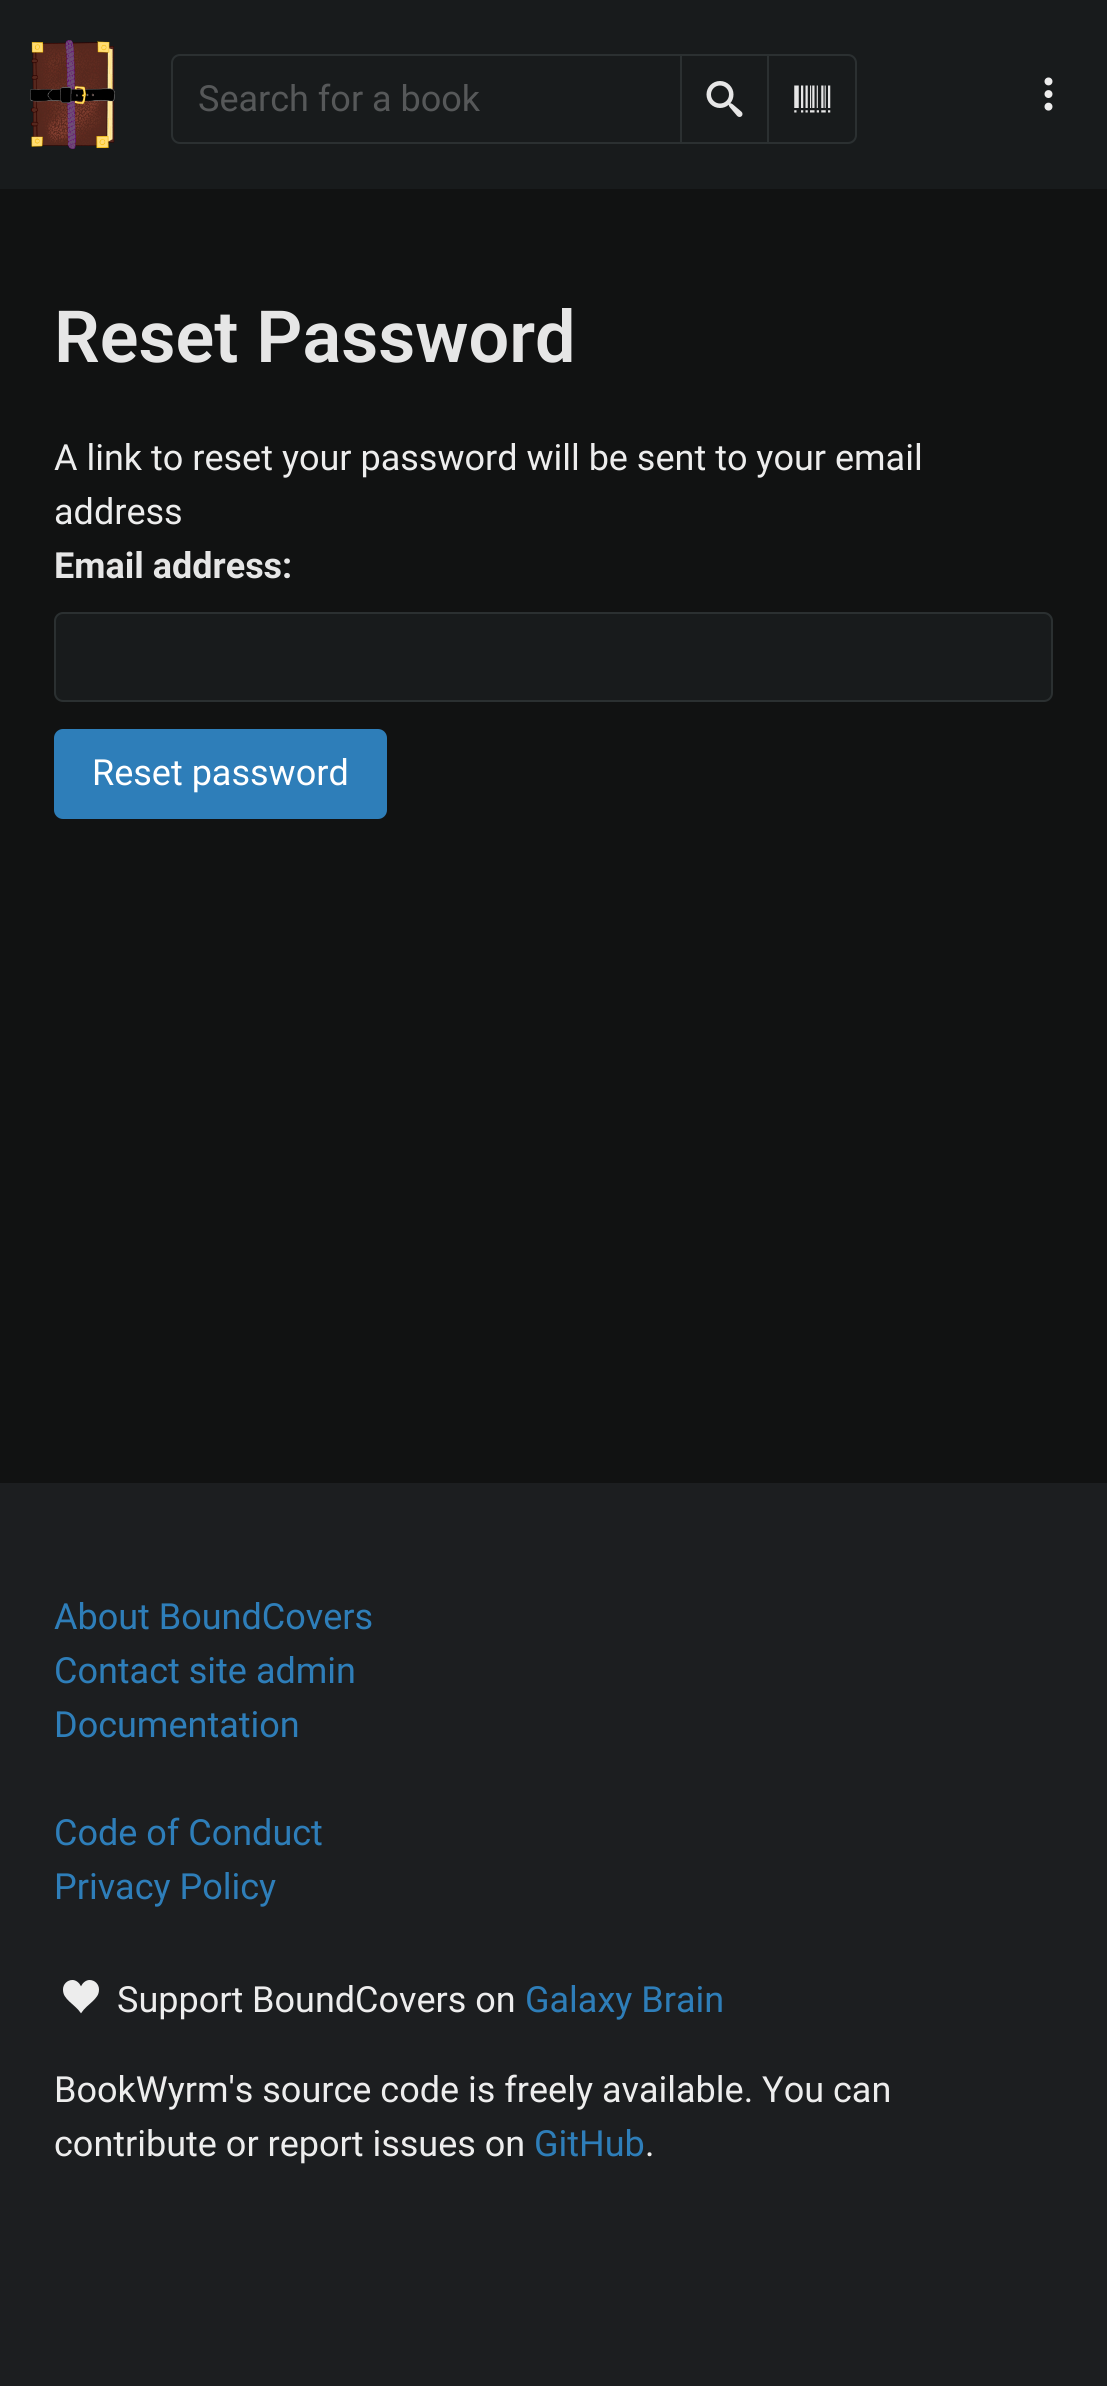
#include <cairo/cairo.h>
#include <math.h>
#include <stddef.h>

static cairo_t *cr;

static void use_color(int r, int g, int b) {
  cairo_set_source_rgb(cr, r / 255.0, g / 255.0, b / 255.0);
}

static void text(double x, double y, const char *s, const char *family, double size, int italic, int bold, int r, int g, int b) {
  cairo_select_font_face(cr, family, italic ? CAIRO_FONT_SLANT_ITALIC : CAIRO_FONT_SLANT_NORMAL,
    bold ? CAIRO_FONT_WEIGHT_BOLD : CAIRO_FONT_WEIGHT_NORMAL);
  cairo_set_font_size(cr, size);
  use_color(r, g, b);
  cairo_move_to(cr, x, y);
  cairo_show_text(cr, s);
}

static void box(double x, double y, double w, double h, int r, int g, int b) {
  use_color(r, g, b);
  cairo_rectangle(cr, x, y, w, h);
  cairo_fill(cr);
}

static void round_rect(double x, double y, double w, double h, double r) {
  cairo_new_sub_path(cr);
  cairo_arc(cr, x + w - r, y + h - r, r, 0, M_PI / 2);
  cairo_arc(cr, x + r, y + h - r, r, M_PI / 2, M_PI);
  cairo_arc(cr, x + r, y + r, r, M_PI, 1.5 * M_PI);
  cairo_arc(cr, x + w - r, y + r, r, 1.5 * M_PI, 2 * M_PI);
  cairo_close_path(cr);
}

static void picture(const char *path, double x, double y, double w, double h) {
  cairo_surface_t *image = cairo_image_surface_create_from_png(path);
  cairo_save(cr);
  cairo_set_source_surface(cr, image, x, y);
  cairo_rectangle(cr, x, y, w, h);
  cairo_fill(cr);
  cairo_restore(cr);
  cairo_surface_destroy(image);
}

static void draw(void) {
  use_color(17, 18, 18);
  cairo_paint(cr);
  box(0, 0, 1107, 189, 24, 27, 28);
  picture("img_01.png", 30, 40, 85, 109);
  cairo_new_path(cr);
  cairo_move_to(cr, 180, 55);
  cairo_line_to(cr, 681, 55);
  cairo_line_to(cr, 681, 143);
  cairo_line_to(cr, 180, 143);
  cairo_curve_to(cr, 175.5, 143, 172, 139.5, 172, 135);
  cairo_line_to(cr, 172, 63);
  cairo_curve_to(cr, 172, 58.5, 175.5, 55, 180, 55);
  cairo_close_path(cr);
  use_color(43, 48, 49);
  cairo_stroke(cr);
  cairo_rectangle(cr, 681, 55, 88, 88);
  cairo_stroke(cr);
  picture("img_02.png", 706, 81, 37, 36);
  use_color(24, 27, 28);
  cairo_new_path(cr);
  cairo_move_to(cr, 768, 55);
  cairo_line_to(cr, 848, 55);
  cairo_curve_to(cr, 852.5, 55, 856, 58.5, 856, 63);
  cairo_line_to(cr, 856, 135);
  cairo_curve_to(cr, 856, 139.5, 852.5, 143, 848, 143);
  cairo_line_to(cr, 768, 143);
  cairo_close_path(cr);
  cairo_fill_preserve(cr);
  use_color(43, 48, 49);
  cairo_stroke(cr);
  picture("img_03.png", 794, 85, 37, 28);
  picture("img_04.png", 1044, 77, 9, 34);
  use_color(24, 27, 28);
  round_rect(55, 613, 997, 88, 8);
  cairo_fill_preserve(cr);
  use_color(43, 48, 49);
  cairo_stroke(cr);
  use_color(46, 126, 185);
  round_rect(54, 729, 333, 90, 9);
  cairo_fill(cr);
  box(0, 1483, 1107, 903, 28, 30, 32);
  picture("img_05.png", 63, 1980, 36, 34);
  text(198, 111, "Search for a book", "Roboto", 36, 0, 0, 86, 88, 89);
  text(54, 362, "Reset Password", "Roboto SemiBold", 72, 0, 0, 230, 230, 230);
  text(54, 470, "A link to reset your password will be sent to your email", "Roboto", 36, 0, 0, 237, 237, 237);
  text(54, 524, "address", "Roboto", 36, 0, 0, 237, 237, 237);
  text(54, 578, "Email address:", "Roboto", 36, 0, 1, 230, 230, 230);
  text(92, 785, "Reset password", "Roboto", 36, 0, 0, 255, 255, 255);
  text(54, 1629, "About BoundCovers", "Roboto", 36, 0, 0, 46, 126, 185);
  text(54, 1683, "Contact site admin", "Roboto", 36, 0, 0, 46, 126, 185);
  text(54, 1737, "Documentation", "Roboto", 36, 0, 0, 46, 126, 185);
  text(54, 1845, "Code of Conduct", "Roboto", 36, 0, 0, 46, 126, 185);
  text(54, 1899, "Privacy Policy", "Roboto", 36, 0, 0, 46, 126, 185);
  text(117, 2012, "Support BoundCovers on", "Roboto", 36, 0, 0, 237, 237, 237);
  text(525, 2012, "Galaxy Brain", "Roboto", 36, 0, 0, 46, 126, 185);
  text(54, 2102, "BookWyrm's source code is freely available. You can", "Roboto", 36, 0, 0, 237, 237, 237);
  text(54, 2156, "contribute or report issues on", "Roboto", 36, 0, 0, 237, 237, 237);
  text(534, 2156, "GitHub", "Roboto", 36, 0, 0, 46, 126, 185);
  text(645, 2156, ".", "Roboto", 36, 0, 0, 237, 237, 237);
}

int main(void) {
  cairo_surface_t *surface = cairo_image_surface_create(CAIRO_FORMAT_RGB24, 1107, 2386);
  cr = cairo_create(surface);
  cairo_font_options_t *options = cairo_font_options_create();
  cairo_font_options_set_hint_metrics(options, CAIRO_HINT_METRICS_OFF);
  cairo_font_options_set_hint_style(options, CAIRO_HINT_STYLE_NONE);
  cairo_set_font_options(cr, options);
  cairo_set_miter_limit(cr, 4);
  draw();
  cairo_surface_write_to_png(surface, "out.png");
  cairo_font_options_destroy(options);
  cairo_destroy(cr);
  cairo_surface_destroy(surface);
  return 0;
}
